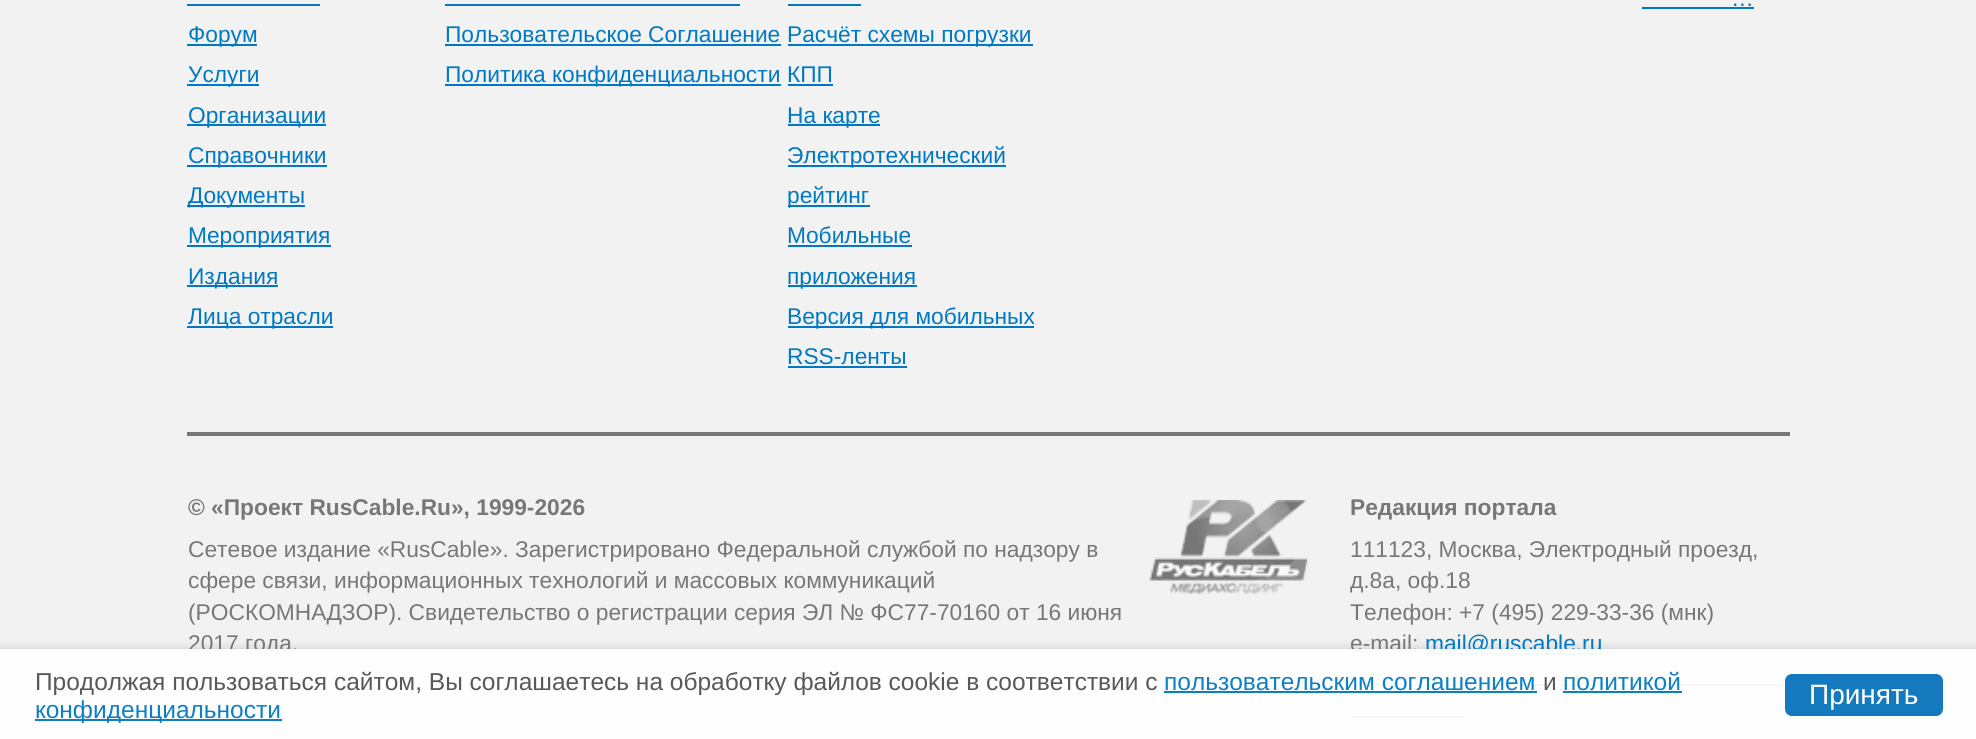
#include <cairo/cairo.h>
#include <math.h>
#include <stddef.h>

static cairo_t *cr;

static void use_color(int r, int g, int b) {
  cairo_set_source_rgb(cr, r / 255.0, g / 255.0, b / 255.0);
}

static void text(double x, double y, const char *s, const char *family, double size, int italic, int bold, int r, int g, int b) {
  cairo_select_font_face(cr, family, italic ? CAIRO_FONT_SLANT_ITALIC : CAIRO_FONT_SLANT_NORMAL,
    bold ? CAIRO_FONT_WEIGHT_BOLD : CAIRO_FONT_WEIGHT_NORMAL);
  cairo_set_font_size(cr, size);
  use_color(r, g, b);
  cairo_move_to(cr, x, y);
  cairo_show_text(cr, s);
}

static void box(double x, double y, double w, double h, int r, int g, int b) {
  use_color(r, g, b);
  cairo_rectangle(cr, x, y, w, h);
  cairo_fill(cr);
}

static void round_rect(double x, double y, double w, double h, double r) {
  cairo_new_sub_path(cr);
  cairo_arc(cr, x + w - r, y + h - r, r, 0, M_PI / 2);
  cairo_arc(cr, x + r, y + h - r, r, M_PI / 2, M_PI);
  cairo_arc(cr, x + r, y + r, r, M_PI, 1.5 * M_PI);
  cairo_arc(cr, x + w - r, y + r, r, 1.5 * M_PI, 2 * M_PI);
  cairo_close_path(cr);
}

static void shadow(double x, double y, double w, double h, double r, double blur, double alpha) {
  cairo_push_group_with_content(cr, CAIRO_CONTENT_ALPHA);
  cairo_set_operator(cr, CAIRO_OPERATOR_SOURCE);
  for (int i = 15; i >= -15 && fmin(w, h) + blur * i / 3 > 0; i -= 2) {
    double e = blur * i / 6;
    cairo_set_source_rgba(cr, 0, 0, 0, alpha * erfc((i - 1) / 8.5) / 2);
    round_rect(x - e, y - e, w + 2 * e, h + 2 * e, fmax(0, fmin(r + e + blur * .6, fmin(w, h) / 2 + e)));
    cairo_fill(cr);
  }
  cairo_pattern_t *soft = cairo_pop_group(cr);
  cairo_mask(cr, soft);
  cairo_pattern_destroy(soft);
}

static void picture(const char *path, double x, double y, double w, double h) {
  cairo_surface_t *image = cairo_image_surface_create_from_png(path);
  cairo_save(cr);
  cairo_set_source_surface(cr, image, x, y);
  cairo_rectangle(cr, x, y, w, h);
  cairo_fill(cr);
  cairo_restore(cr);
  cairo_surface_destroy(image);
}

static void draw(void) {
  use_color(242, 242, 242);
  cairo_paint(cr);
  box(1642, 7, 112, 2, 0, 121, 194);
  box(187, 4, 133, 2, 0, 121, 194);
  box(187, 44, 70, 2, 0, 121, 194);
  box(187, 84, 72, 2, 0, 121, 194);
  box(187, 124, 139, 2, 0, 121, 194);
  box(187, 165, 140, 2, 0, 121, 194);
  box(187, 205, 118, 2, 0, 121, 194);
  box(187, 245, 144, 2, 0, 121, 194);
  box(187, 285, 91, 2, 0, 121, 194);
  box(187, 326, 146, 2, 0, 121, 194);
  box(445, 4, 295, 2, 0, 121, 194);
  box(445, 44, 336, 2, 0, 121, 194);
  box(445, 84, 336, 2, 0, 121, 194);
  box(788, 4, 73, 2, 0, 121, 194);
  box(788, 44, 245, 2, 0, 121, 194);
  box(788, 84, 45, 2, 0, 121, 194);
  box(788, 124, 92, 2, 0, 121, 194);
  box(788, 165, 218, 2, 0, 121, 194);
  box(788, 205, 82, 2, 0, 121, 194);
  box(788, 245, 124, 2, 0, 121, 194);
  box(788, 285, 129, 2, 0, 121, 194);
  box(788, 326, 246, 2, 0, 121, 194);
  box(788, 366, 119, 2, 0, 121, 194);
  box(187, 432, 1603, 4, 119, 119, 119);
  picture("img_01.png", 1149, 500, 159, 95);
  box(1425, 653, 176, 2, 0, 121, 194);
  box(1351, 684, 431, 2, 0, 121, 194);
  box(1351, 716, 114, 2, 0, 121, 194);
  cairo_save(cr);
  cairo_set_fill_rule(cr, CAIRO_FILL_RULE_EVEN_ODD);
  cairo_new_path(cr);
  cairo_move_to(cr, 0, 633);
  cairo_line_to(cr, 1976, 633);
  cairo_line_to(cr, 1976, 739);
  cairo_line_to(cr, 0, 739);
  cairo_close_path(cr);
  cairo_move_to(cr, 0, 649);
  cairo_line_to(cr, 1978, 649);
  cairo_line_to(cr, 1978, 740);
  cairo_line_to(cr, 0, 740);
  cairo_close_path(cr);
  cairo_clip(cr);
  use_color(0, 0, 0);
  shadow(-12, 649, 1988, 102, 0, 5, 0.19);
  cairo_restore(cr);
  text(1731, 6, "…", "Liberation Sans", 22.75, 0, 0, 0, 121, 194);
  text(188, 42, "Форум", "Liberation Sans", 22.75, 0, 0, 0, 121, 194);
  text(188, 82, "Услуги", "Liberation Sans", 22.75, 0, 0, 0, 121, 194);
  text(188, 123, "Организации", "Liberation Sans", 22.75, 0, 0, 0, 121, 194);
  text(188, 163, "Справочники", "Liberation Sans", 22.75, 0, 0, 0, 121, 194);
  text(188, 203, "Документы", "Liberation Sans", 22.75, 0, 0, 0, 121, 194);
  text(188, 243, "Мероприятия", "Liberation Sans", 22.75, 0, 0, 0, 121, 194);
  text(188, 284, "Издания", "Liberation Sans", 22.75, 0, 0, 0, 121, 194);
  text(188, 324, "Лица отрасли", "Liberation Sans", 22.75, 0, 0, 0, 121, 194);
  text(445, 42, "Пользовательское Соглашение", "Liberation Sans", 22.75, 0, 0, 0, 121, 194);
  text(445, 82, "Политика конфиденциальности", "Liberation Sans", 22.75, 0, 0, 0, 121, 194);
  text(787, 42, "Расчёт схемы погрузки", "Liberation Sans", 22.75, 0, 0, 0, 121, 194);
  text(787, 82, "КПП", "Liberation Sans", 22.75, 0, 0, 0, 121, 194);
  text(787, 123, "На карте", "Liberation Sans", 22.75, 0, 0, 0, 121, 194);
  text(787, 163, "Электротехнический", "Liberation Sans", 22.75, 0, 0, 0, 121, 194);
  text(787, 203, "рейтинг", "Liberation Sans", 22.75, 0, 0, 0, 121, 194);
  text(787, 243, "Мобильные", "Liberation Sans", 22.75, 0, 0, 0, 121, 194);
  text(787, 284, "приложения", "Liberation Sans", 22.75, 0, 0, 0, 121, 194);
  text(787, 324, "Версия для мобильных", "Liberation Sans", 22.75, 0, 0, 0, 121, 194);
  text(787, 364, "RSS-ленты", "Liberation Sans", 22.75, 0, 0, 0, 121, 194);
  text(188, 515, "© «Проект RusCable.Ru», 1999-2026", "Liberation Sans", 22.75, 0, 1, 119, 119, 119);
  text(188, 557, "Сетевое издание «RusCable». Зарегистрировано Федеральной службой по надзору в", "Liberation Sans", 22.75, 0, 0, 119, 119, 119);
  text(188, 588, "сфере связи, информационных технологий и массовых коммуникаций", "Liberation Sans", 22.75, 0, 0, 119, 119, 119);
  text(188, 620, "(РОСКОМНАДЗОР). Свидетельство о регистрации серия ЭЛ № ФС77-70160 от 16 июня", "Liberation Sans", 22.75, 0, 0, 119, 119, 119);
  text(188, 651, "2017 года.", "Liberation Sans", 22.75, 0, 0, 119, 119, 119);
  text(1350, 515, "Редакция портала", "Liberation Sans", 22.75, 0, 1, 119, 119, 119);
  text(1350, 557, "111123, Москва, Электродный проезд,", "Liberation Sans", 22.75, 0, 0, 119, 119, 119);
  text(1350, 588, "д.8а, оф.18", "Liberation Sans", 22.75, 0, 0, 119, 119, 119);
  text(1350, 620, "Телефон: +7 (495) 229-33-36 (мнк)", "Liberation Sans", 22.75, 0, 0, 119, 119, 119);
  text(1350, 651, "e-mail:", "Liberation Sans", 22.75, 0, 0, 119, 119, 119);
  text(1425, 651, "mail@ruscable.ru", "Liberation Sans", 22.75, 0, 0, 0, 121, 194);
  cairo_set_source_rgba(cr, 1, 1, 1, 0.95);
  cairo_rectangle(cr, 0, 649, 1976, 90);
  cairo_fill(cr);
  text(35, 690, "Продолжая пользоваться сайтом, Вы соглашаетесь на обработку файлов cookie в соответствии с", "Liberation Sans", 24.5, 0, 0, 89, 89, 89);
  text(1164, 690, "пользовательским соглашением", "Liberation Sans", 24.5, 0, 0, 13, 128, 197);
  box(1164, 691, 373, 2, 12, 127, 196);
  text(1543, 690, "и", "Liberation Sans", 24.5, 0, 0, 89, 89, 89);
  text(1563, 690, "политикой", "Liberation Sans", 24.5, 0, 0, 13, 128, 197);
  box(1563, 691, 119, 2, 12, 127, 196);
  cairo_set_source_rgba(cr, 0, 0.475, 0.761, 0.95);
  cairo_rectangle(cr, 35, 719, 247, 2);
  cairo_fill(cr);
  text(35, 718, "конфиденциальности", "Liberation Sans", 24.5, 0, 0, 13, 128, 197);
  use_color(21, 122, 189);
  round_rect(1787, 676, 154, 38, 5);
  cairo_fill_preserve(cr);
  cairo_set_line_width(cr, 4);
  cairo_stroke(cr);
  text(1809, 704, "Принять", "Liberation Sans", 28, 0, 0, 254, 254, 254);
}

int main(void) {
  cairo_surface_t *surface = cairo_image_surface_create(CAIRO_FORMAT_RGB24, 1976, 739);
  cr = cairo_create(surface);
  cairo_font_options_t *options = cairo_font_options_create();
  cairo_font_options_set_hint_metrics(options, CAIRO_HINT_METRICS_OFF);
  cairo_font_options_set_hint_style(options, CAIRO_HINT_STYLE_NONE);
  cairo_set_font_options(cr, options);
  cairo_set_miter_limit(cr, 4);
  draw();
  cairo_surface_write_to_png(surface, "out.png");
  cairo_font_options_destroy(options);
  cairo_destroy(cr);
  cairo_surface_destroy(surface);
  return 0;
}
